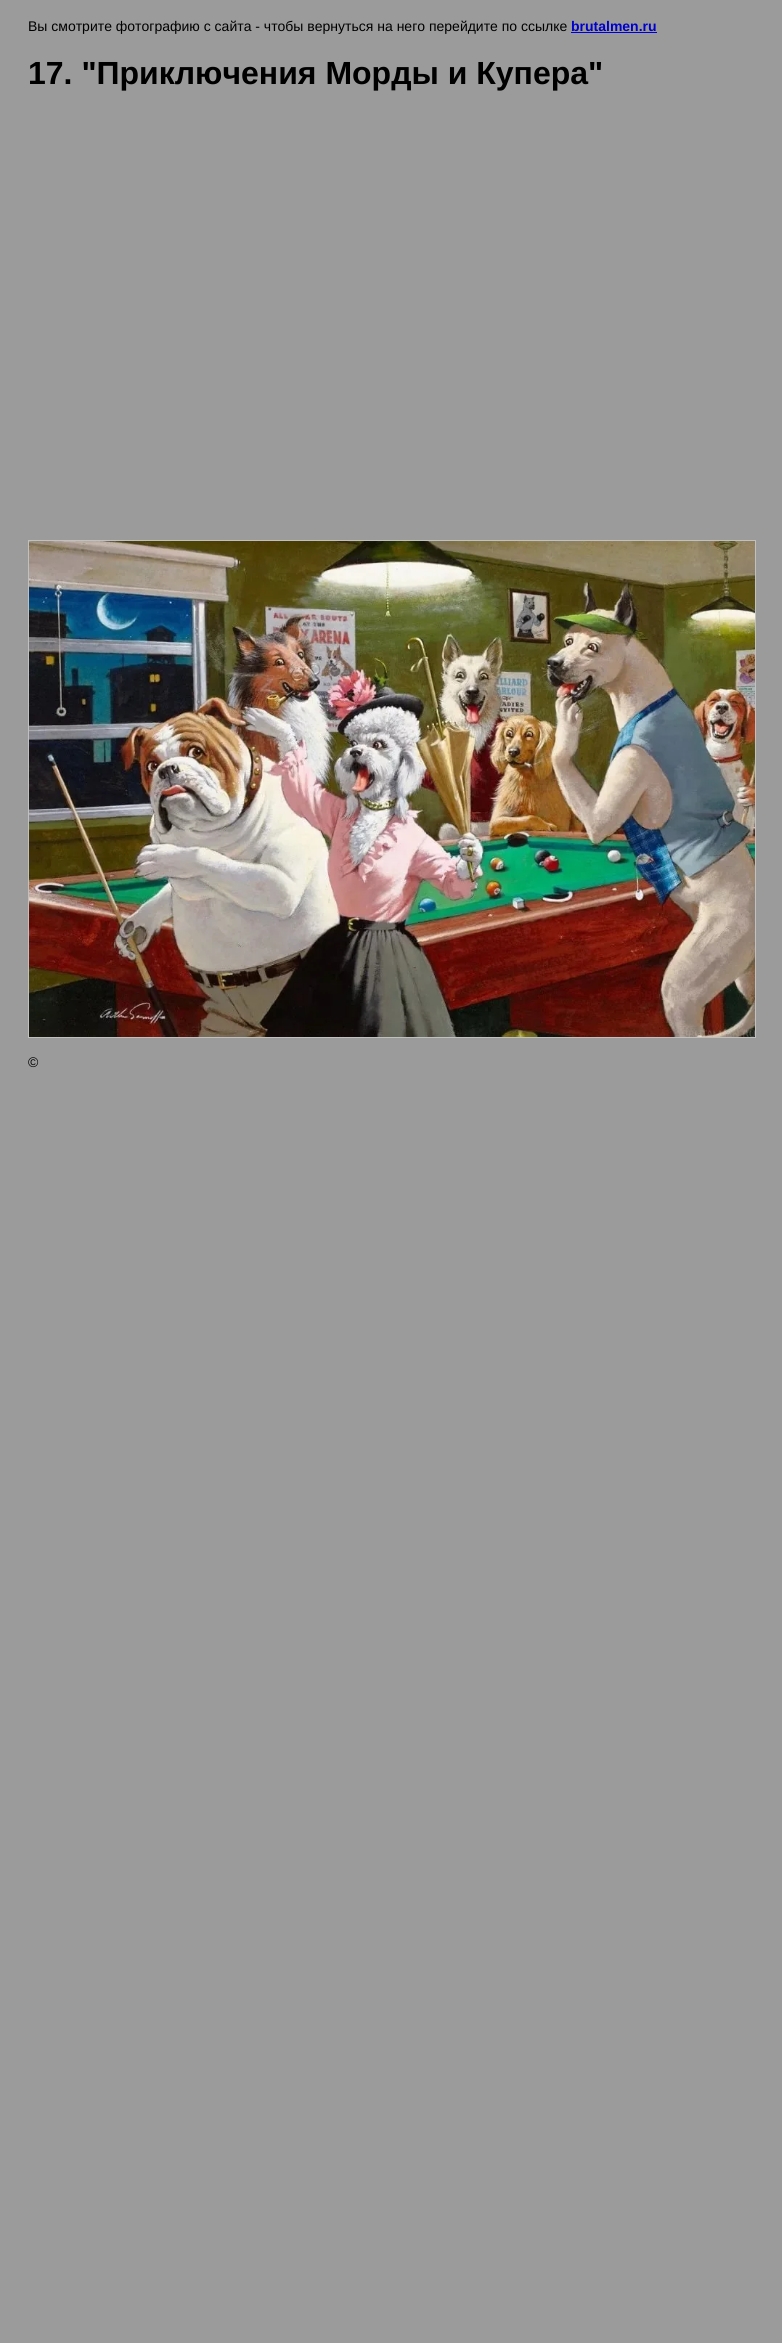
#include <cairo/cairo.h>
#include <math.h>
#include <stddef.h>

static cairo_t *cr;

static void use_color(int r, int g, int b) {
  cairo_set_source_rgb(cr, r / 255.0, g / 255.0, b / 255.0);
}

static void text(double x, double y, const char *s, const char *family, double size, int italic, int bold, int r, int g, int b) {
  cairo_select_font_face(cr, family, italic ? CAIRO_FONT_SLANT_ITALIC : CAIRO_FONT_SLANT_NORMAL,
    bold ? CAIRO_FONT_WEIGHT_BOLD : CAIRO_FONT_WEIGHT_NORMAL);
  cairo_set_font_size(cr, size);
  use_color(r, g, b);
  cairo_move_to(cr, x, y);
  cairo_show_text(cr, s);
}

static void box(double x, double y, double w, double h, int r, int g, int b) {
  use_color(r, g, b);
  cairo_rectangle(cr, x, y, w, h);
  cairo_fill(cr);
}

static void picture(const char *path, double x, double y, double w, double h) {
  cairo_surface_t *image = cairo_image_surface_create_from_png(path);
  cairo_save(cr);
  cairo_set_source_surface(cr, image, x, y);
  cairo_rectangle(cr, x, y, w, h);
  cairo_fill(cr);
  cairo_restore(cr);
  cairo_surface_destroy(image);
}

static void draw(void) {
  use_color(155, 155, 155);
  cairo_paint(cr);
  box(571, 32, 86, 1, 0, 0, 204);
  cairo_rectangle(cr, 28.5, 540.5, 727, 497);
  use_color(192, 192, 192);
  cairo_set_line_width(cr, 1);
  cairo_stroke(cr);
  picture("img_01.png", 29, 541, 726, 496);
  text(28, 31, "Вы смотрите фотографию с сайта - чтобы вернуться на него перейдите по ссылке", "Liberation Sans", 14, 0, 0, 0, 0, 0);
  text(571, 31, "brutalmen.ru", "Liberation Sans", 14, 0, 1, 0, 0, 204);
  text(28, 84, "17. \"Приключения Морды и Купера\"", "Liberation Sans", 32, 0, 1, 0, 0, 0);
  text(28, 1067, "©", "Liberation Sans", 14, 0, 0, 0, 0, 0);
}

int main(void) {
  cairo_surface_t *surface = cairo_image_surface_create(CAIRO_FORMAT_RGB24, 782, 2343);
  cr = cairo_create(surface);
  cairo_font_options_t *options = cairo_font_options_create();
  cairo_font_options_set_hint_metrics(options, CAIRO_HINT_METRICS_OFF);
  cairo_font_options_set_hint_style(options, CAIRO_HINT_STYLE_NONE);
  cairo_set_font_options(cr, options);
  cairo_set_miter_limit(cr, 4);
  draw();
  cairo_surface_write_to_png(surface, "out.png");
  cairo_font_options_destroy(options);
  cairo_destroy(cr);
  cairo_surface_destroy(surface);
  return 0;
}
